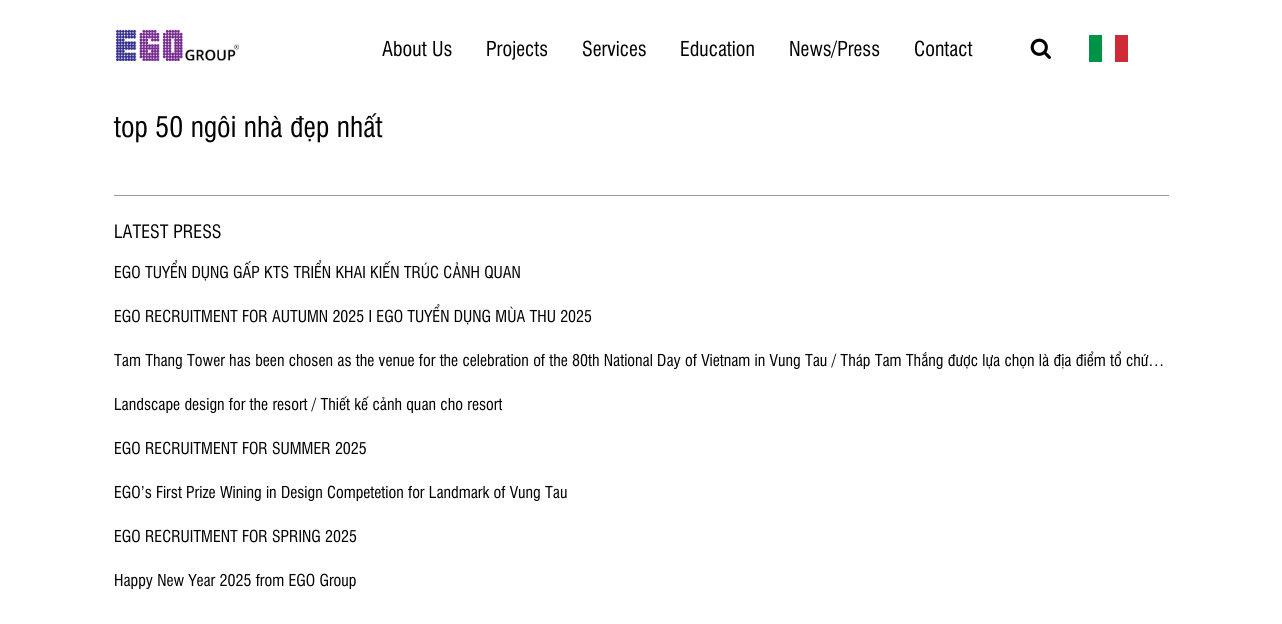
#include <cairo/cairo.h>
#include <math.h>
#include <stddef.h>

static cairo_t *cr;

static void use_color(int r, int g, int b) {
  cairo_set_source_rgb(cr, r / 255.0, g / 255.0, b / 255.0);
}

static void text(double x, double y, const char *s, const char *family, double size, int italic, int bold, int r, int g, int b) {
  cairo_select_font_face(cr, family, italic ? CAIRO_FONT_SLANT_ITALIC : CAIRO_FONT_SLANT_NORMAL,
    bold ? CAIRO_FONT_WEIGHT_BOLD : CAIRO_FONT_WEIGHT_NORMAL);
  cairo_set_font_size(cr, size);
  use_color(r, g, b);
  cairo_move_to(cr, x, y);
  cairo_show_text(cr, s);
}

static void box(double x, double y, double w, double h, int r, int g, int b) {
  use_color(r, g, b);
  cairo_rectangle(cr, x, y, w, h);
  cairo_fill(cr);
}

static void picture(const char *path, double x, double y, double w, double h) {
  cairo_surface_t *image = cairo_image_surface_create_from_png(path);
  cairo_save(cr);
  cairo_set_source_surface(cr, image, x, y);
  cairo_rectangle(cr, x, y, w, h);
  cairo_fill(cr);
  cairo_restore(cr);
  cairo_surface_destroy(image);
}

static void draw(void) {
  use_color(255, 255, 255);
  cairo_paint(cr);
  picture("img_01.png", 115, 29, 125, 32);
  picture("img_02.png", 1030, 38, 21, 21);
  picture("img_03.png", 1089, 35, 39, 27);
  box(114, 195, 1055, 1, 153, 153, 153);
  text(382, 56, "About Us", "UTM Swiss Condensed", 20, 0, 0, 0, 0, 0);
  text(486, 56, "Projects", "UTM Swiss Condensed", 20, 0, 0, 0, 0, 0);
  text(582, 56, "Services", "UTM Swiss Condensed", 20, 0, 0, 0, 0, 0);
  text(680, 56, "Education", "UTM Swiss Condensed", 20, 0, 0, 0, 0, 0);
  text(789, 56, "News/Press", "UTM Swiss Condensed", 20, 0, 0, 0, 0, 0);
  text(914, 56, "Contact", "UTM Swiss Condensed", 20, 0, 0, 0, 0, 0);
  text(114, 137, "top 50 ngôi nhà đẹp nhất", "UTM Swiss Condensed", 28, 0, 0, 0, 0, 0);
  text(114, 238, "LATEST PRESS", "UTM Swiss Condensed", 18, 0, 0, 0, 0, 0);
  text(114, 278, "EGO TUYỂN DỤNG GẤP KTS TRIỂN KHAI KIẾN TRÚC CẢNH QUAN", "UTM Swiss Condensed", 16, 0, 0, 0, 0, 0);
  text(114, 322, "EGO RECRUITMENT FOR AUTUMN 2025 I EGO TUYỂN DỤNG MÙA THU 2025", "UTM Swiss Condensed", 16, 0, 0, 0, 0, 0);
  text(114, 366, "Tam Thang Tower has been chosen as the venue for the celebration of the 80th National Day of Vietnam in Vung Tau / Tháp Tam Thắng được lựa chọn là địa điểm tổ chứ…", "UTM Swiss Condensed", 16, 0, 0, 0, 0, 0);
  text(114, 410, "Landscape design for the resort / Thiết kế cảnh quan cho resort", "UTM Swiss Condensed", 16, 0, 0, 0, 0, 0);
  text(114, 454, "EGO RECRUITMENT FOR SUMMER 2025", "UTM Swiss Condensed", 16, 0, 0, 0, 0, 0);
  text(114, 498, "EGO’s First Prize Wining in Design Competetion for Landmark of Vung Tau", "UTM Swiss Condensed", 16, 0, 0, 0, 0, 0);
  text(114, 542, "EGO RECRUITMENT FOR SPRING 2025", "UTM Swiss Condensed", 16, 0, 0, 0, 0, 0);
  text(114, 586, "Happy New Year 2025 from EGO Group", "UTM Swiss Condensed", 16, 0, 0, 0, 0, 0);
}

int main(void) {
  cairo_surface_t *surface = cairo_image_surface_create(CAIRO_FORMAT_RGB24, 1282, 624);
  cr = cairo_create(surface);
  cairo_font_options_t *options = cairo_font_options_create();
  cairo_font_options_set_hint_metrics(options, CAIRO_HINT_METRICS_OFF);
  cairo_font_options_set_hint_style(options, CAIRO_HINT_STYLE_NONE);
  cairo_set_font_options(cr, options);
  cairo_set_miter_limit(cr, 4);
  draw();
  cairo_surface_write_to_png(surface, "out.png");
  cairo_font_options_destroy(options);
  cairo_destroy(cr);
  cairo_surface_destroy(surface);
  return 0;
}
